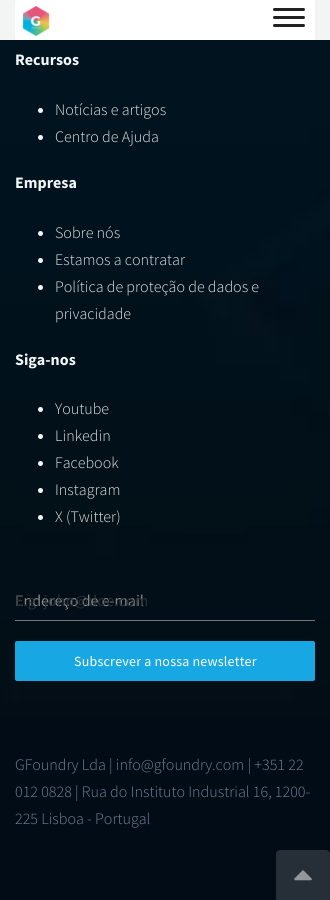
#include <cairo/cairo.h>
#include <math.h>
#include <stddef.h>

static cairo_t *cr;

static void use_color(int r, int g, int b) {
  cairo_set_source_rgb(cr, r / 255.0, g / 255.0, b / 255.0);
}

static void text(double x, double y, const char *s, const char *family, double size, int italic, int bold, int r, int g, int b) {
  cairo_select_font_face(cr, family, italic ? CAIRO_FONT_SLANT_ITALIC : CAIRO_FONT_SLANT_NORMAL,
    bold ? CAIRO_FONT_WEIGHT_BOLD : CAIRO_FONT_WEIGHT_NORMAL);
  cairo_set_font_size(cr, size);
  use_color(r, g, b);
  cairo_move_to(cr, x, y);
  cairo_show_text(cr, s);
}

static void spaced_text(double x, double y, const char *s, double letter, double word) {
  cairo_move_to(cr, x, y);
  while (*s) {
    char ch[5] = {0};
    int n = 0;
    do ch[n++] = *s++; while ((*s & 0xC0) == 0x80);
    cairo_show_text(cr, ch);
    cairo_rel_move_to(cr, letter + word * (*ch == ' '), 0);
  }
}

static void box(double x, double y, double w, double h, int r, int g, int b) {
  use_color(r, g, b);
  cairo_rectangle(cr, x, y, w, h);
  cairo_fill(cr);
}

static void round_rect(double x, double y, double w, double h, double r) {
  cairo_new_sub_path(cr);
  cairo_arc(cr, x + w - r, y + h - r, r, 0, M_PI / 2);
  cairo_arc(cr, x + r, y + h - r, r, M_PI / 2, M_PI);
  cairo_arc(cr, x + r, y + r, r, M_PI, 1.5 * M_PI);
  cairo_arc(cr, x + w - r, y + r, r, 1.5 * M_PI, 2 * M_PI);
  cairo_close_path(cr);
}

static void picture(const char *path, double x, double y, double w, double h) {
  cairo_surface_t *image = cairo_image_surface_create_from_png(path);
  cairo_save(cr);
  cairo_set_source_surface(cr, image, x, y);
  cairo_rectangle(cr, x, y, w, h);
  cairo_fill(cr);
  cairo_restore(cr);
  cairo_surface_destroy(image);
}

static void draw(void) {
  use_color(255, 255, 255);
  cairo_paint(cr);
  picture("img_02.png", 0, 0, 330, 900);
  cairo_set_source_rgba(cr, 1, 1, 1, 0.95);
  cairo_rectangle(cr, 0, 0, 330, 40);
  cairo_fill(cr);
  use_color(255, 255, 255);
  round_rect(15, 0, 300, 40, 2);
  cairo_fill(cr);
  picture("img_01.png", 22, 6, 28, 30);
  use_color(34, 34, 34);
  round_rect(273, 8, 32, 3, 1.5);
  cairo_fill(cr);
  round_rect(273, 16, 32, 3, 1.5);
  cairo_fill(cr);
  round_rect(273, 24, 32, 3, 1.5);
  cairo_fill(cr);
  use_color(241, 245, 248);
  cairo_arc(cr, 40.5, 110.5, 2.5, 0, 2 * M_PI);
  cairo_fill(cr);
  cairo_arc(cr, 40.5, 137.5, 2.5, 0, 2 * M_PI);
  cairo_fill(cr);
  cairo_arc(cr, 40.5, 233.5, 2.5, 0, 2 * M_PI);
  cairo_fill(cr);
  cairo_arc(cr, 40.5, 260.5, 2.5, 0, 2 * M_PI);
  cairo_fill(cr);
  cairo_arc(cr, 40.5, 287.5, 2.5, 0, 2 * M_PI);
  cairo_fill(cr);
  cairo_arc(cr, 40.5, 409.5, 2.5, 0, 2 * M_PI);
  cairo_fill(cr);
  cairo_arc(cr, 40.5, 436.5, 2.5, 0, 2 * M_PI);
  cairo_fill(cr);
  cairo_arc(cr, 40.5, 463.5, 2.5, 0, 2 * M_PI);
  cairo_fill(cr);
  cairo_arc(cr, 40.5, 490.5, 2.5, 0, 2 * M_PI);
  cairo_fill(cr);
  cairo_arc(cr, 40.5, 517.5, 2.5, 0, 2 * M_PI);
  cairo_fill(cr);
  box(15, 620, 300, 1, 119, 119, 113);
  use_color(23, 168, 227);
  round_rect(15, 641, 300, 40, 2);
  cairo_fill(cr);
  use_color(38, 46, 55);
  cairo_new_path(cr);
  cairo_move_to(cr, 280, 850);
  cairo_line_to(cr, 326, 850);
  cairo_curve_to(cr, 328, 850, 330, 852, 330, 854);
  cairo_line_to(cr, 330, 900);
  cairo_line_to(cr, 276, 900);
  cairo_line_to(cr, 276, 854);
  cairo_curve_to(cr, 276, 852, 278, 850, 280, 850);
  cairo_close_path(cr);
  cairo_fill(cr);
  picture("img_03.png", 294, 870, 18, 11);
  text(15, 65, "Recursos", "Source Sans Pro", 16, 0, 1, 241, 245, 248);
  text(55, 115, "Notícias e artigos", "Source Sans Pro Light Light", 16, 0, 0, 230, 230, 230);
  text(55, 142, "Centro de Ajuda", "Source Sans Pro Light Light", 16, 0, 0, 230, 230, 230);
  text(15, 188, "Empresa", "Source Sans Pro", 16, 0, 1, 241, 245, 248);
  text(55, 238, "Sobre nós", "Source Sans Pro Light Light", 16, 0, 0, 230, 230, 230);
  text(55, 265, "Estamos a contratar", "Source Sans Pro Light Light", 16, 0, 0, 230, 230, 230);
  text(55, 292, "Política de proteção de dados e", "Source Sans Pro Light Light", 16, 0, 0, 230, 230, 230);
  text(55, 319, "privacidade", "Source Sans Pro Light Light", 16, 0, 0, 230, 230, 230);
  text(15, 365, "Siga-nos", "Source Sans Pro", 16, 0, 1, 241, 245, 248);
  text(55, 414, "Youtube", "Source Sans Pro Light Light", 16, 0, 0, 230, 230, 230);
  text(55, 441, "Linkedin", "Source Sans Pro Light Light", 16, 0, 0, 230, 230, 230);
  text(55, 468, "Facebook", "Source Sans Pro Light Light", 16, 0, 0, 230, 230, 230);
  text(55, 495, "Instagram", "Source Sans Pro Light Light", 16, 0, 0, 230, 230, 230);
  text(55, 522, "X (Twitter)", "Source Sans Pro Light Light", 16, 0, 0, 230, 230, 230);
  text(15, 606, "Endereço de e-mail", "Source Sans Pro", 16, 0, 0, 136, 136, 136);
  use_color(41, 50, 57);
  spaced_text(15, 606, "E.g. john@doe.com", 0.2, 0);
  cairo_set_font_size(cr, 14);
  use_color(255, 255, 255);
  spaced_text(74, 666, "Subscrever a nossa newsletter", 0.2, 0);
  text(15, 770, "GFoundry Lda | info@gfoundry.com | +351 22", "Source Sans Pro Light Light", 16, 0, 0, 114, 129, 148);
  text(15, 797, "012 0828 | Rua do Instituto Industrial 16, 1200-", "Source Sans Pro Light Light", 16, 0, 0, 114, 129, 148);
  text(15, 824, "225 Lisboa - Portugal", "Source Sans Pro Light Light", 16, 0, 0, 114, 129, 148);
}

int main(void) {
  cairo_surface_t *surface = cairo_image_surface_create(CAIRO_FORMAT_RGB24, 330, 900);
  cr = cairo_create(surface);
  cairo_font_options_t *options = cairo_font_options_create();
  cairo_font_options_set_hint_metrics(options, CAIRO_HINT_METRICS_OFF);
  cairo_font_options_set_hint_style(options, CAIRO_HINT_STYLE_NONE);
  cairo_set_font_options(cr, options);
  cairo_set_miter_limit(cr, 4);
  draw();
  cairo_surface_write_to_png(surface, "out.png");
  cairo_font_options_destroy(options);
  cairo_destroy(cr);
  cairo_surface_destroy(surface);
  return 0;
}
